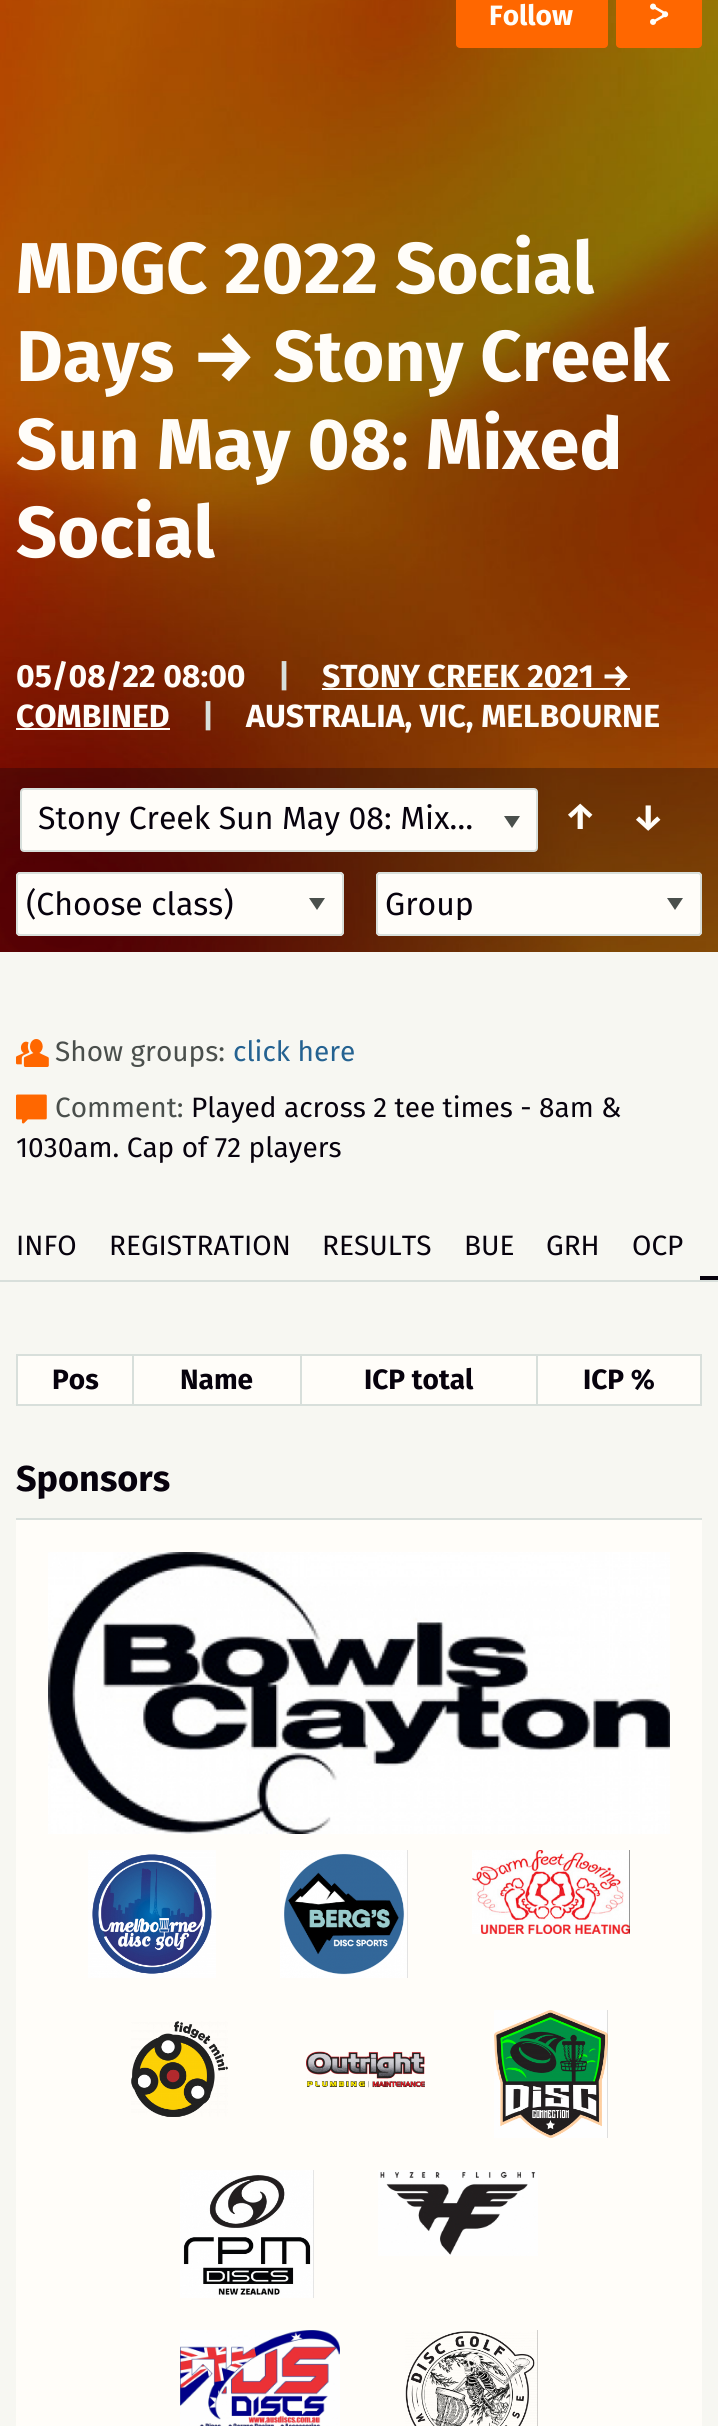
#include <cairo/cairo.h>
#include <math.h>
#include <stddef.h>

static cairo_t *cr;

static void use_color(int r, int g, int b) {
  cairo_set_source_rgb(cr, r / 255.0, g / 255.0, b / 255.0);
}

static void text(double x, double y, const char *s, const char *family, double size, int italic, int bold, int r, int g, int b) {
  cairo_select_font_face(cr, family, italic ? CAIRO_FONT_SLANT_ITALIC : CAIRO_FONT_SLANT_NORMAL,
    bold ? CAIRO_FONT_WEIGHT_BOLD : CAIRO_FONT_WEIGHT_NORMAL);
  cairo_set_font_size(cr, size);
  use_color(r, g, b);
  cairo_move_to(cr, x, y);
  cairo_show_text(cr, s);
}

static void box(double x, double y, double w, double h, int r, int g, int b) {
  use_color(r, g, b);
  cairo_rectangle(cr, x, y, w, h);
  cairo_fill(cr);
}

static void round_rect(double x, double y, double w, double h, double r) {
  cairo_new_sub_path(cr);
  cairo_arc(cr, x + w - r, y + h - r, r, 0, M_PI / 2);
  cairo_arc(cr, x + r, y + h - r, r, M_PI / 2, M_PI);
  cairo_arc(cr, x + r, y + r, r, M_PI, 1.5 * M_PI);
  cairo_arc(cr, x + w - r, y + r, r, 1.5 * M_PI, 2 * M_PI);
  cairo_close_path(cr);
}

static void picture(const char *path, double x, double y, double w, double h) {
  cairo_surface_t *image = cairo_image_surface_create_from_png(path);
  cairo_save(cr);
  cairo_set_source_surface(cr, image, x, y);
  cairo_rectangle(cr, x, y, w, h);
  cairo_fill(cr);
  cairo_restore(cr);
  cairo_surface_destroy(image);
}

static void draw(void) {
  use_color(247, 247, 242);
  cairo_paint(cr);
  picture("img_01.png", 0, 0, 718, 952);
  use_color(255, 103, 0);
  round_rect(456, -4, 152, 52, 4);
  cairo_fill(cr);
  round_rect(616, -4, 86, 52, 4);
  cairo_fill(cr);
  picture("img_02.png", 650, 3, 19, 22);
  box(322, 688, 308, 2, 255, 253, 249);
  box(16, 728, 154, 2, 255, 253, 249);
  cairo_set_source_rgba(cr, 0.027, 0.008, 0.051, 0.3);
  cairo_rectangle(cr, 0, 768, 718, 184);
  cairo_fill(cr);
  use_color(255, 253, 249);
  round_rect(21, 789, 516, 62, 3);
  cairo_fill_preserve(cr);
  use_color(216, 223, 219);
  cairo_stroke(cr);
  use_color(74, 79, 76);
  cairo_new_path(cr);
  cairo_move_to(cr, 504, 816);
  cairo_line_to(cr, 520, 816);
  cairo_line_to(cr, 512, 828);
  cairo_close_path(cr);
  cairo_fill(cr);
  use_color(255, 253, 249);
  round_rect(16, 872, 328, 64, 4);
  cairo_fill(cr);
  use_color(74, 79, 76);
  cairo_new_path(cr);
  cairo_move_to(cr, 309, 898);
  cairo_line_to(cr, 325, 898);
  cairo_line_to(cr, 317, 910);
  cairo_close_path(cr);
  cairo_fill(cr);
  round_rect(17, 873, 326, 62, 3);
  use_color(216, 223, 219);
  cairo_stroke(cr);
  use_color(255, 253, 249);
  round_rect(376, 872, 326, 64, 4);
  cairo_fill(cr);
  use_color(74, 79, 76);
  cairo_new_path(cr);
  cairo_move_to(cr, 667, 898);
  cairo_line_to(cr, 683, 898);
  cairo_line_to(cr, 675, 910);
  cairo_close_path(cr);
  cairo_fill(cr);
  round_rect(377, 873, 324, 62, 3);
  use_color(216, 223, 219);
  cairo_stroke(cr);
  picture("img_03.png", 16, 1039, 33, 28);
  picture("img_04.png", 16, 1094, 31, 30);
  box(0, 1280, 718, 2, 216, 223, 219);
  box(700, 1276, 18, 4, 7, 2, 13);
  box(18, 1356, 682, 48, 255, 253, 249);
  box(536, 1354, 166, 2, 216, 223, 219);
  box(700, 1354, 2, 52, 216, 223, 219);
  box(536, 1404, 166, 2, 216, 223, 219);
  box(536, 1354, 2, 52, 216, 223, 219);
  box(300, 1354, 238, 2, 216, 223, 219);
  box(300, 1404, 238, 2, 216, 223, 219);
  box(300, 1354, 2, 52, 216, 223, 219);
  box(132, 1354, 170, 2, 216, 223, 219);
  box(132, 1404, 170, 2, 216, 223, 219);
  box(132, 1354, 2, 52, 216, 223, 219);
  box(16, 1354, 118, 2, 216, 223, 219);
  box(16, 1404, 118, 2, 216, 223, 219);
  box(16, 1354, 2, 52, 216, 223, 219);
  box(16, 1520, 686, 906, 255, 253, 249);
  box(16, 1518, 686, 2, 216, 223, 219);
  picture("img_05.png", 48, 1552, 622, 282);
  picture("img_06.png", 88, 1850, 128, 128);
  picture("img_07.png", 280, 1850, 128, 128);
  picture("img_08.png", 472, 1850, 158, 84);
  picture("img_09.png", 131, 2021, 97, 96);
  picture("img_10.png", 306, 2051, 119, 37);
  picture("img_11.png", 494, 2010, 114, 128);
  picture("img_12.png", 180, 2170, 134, 128);
  picture("img_13.png", 378, 2170, 160, 86);
  picture("img_14.png", 180, 2330, 160, 96);
  picture("img_15.png", 405, 2330, 133, 96);
  text(489, 25, "Follow", "Fira Sans", 28, 0, 1, 255, 253, 249);
  text(16, 293, "MDGC 2022 Social", "Fira Sans", 72, 0, 1, 255, 253, 249);
  text(16, 381, "Days → Stony Creek", "Fira Sans", 72, 0, 1, 255, 253, 249);
  text(16, 469, "Sun May 08: Mixed", "Fira Sans", 72, 0, 1, 255, 253, 249);
  text(16, 557, "Social", "Fira Sans", 72, 0, 1, 255, 253, 249);
  text(16, 687, "05/08/22 08:00", "Fira Sans", 32, 0, 1, 255, 253, 249);
  text(278, 687, "|", "Fira Sans", 32, 0, 1, 216, 223, 219);
  text(322, 687, "STONY CREEK 2021 →", "Fira Sans", 32, 0, 1, 255, 253, 249);
  text(16, 727, "COMBINED", "Fira Sans", 32, 0, 1, 255, 253, 249);
  text(202, 727, "|", "Fira Sans", 32, 0, 1, 216, 223, 219);
  text(246, 727, "AUSTRALIA, VIC, MELBOURNE", "Fira Sans", 32, 0, 1, 255, 253, 249);
  text(38, 829, "Stony Creek Sun May 08: Mix…", "Fira Sans", 32, 0, 0, 7, 2, 13);
  text(564, 829, "↑", "Fira Sans", 36, 0, 1, 255, 253, 249);
  text(632, 829, "↓", "Fira Sans", 36, 0, 1, 255, 253, 249);
  text(26, 915, "(Choose class)", "Fira Sans", 32, 0, 0, 7, 2, 13);
  cairo_save(cr);
  cairo_rectangle(cr, 386, 888, 266, 32);
  cairo_clip(cr);
  text(385, 915, "Group", "Fira Sans", 32, 0, 0, 7, 2, 13);
  cairo_restore(cr);
  text(55, 1061, "Show groups:", "Fira Sans", 28, 0, 0, 74, 79, 76);
  text(233, 1061, "click here", "Fira Sans", 28, 0, 0, 36, 98, 145);
  text(55, 1117, "Comment:", "Fira Sans", 28, 0, 0, 74, 79, 76);
  text(191, 1117, "Played across 2 tee times - 8am &", "Fira Sans", 28, 0, 0, 7, 2, 13);
  text(16, 1157, "1030am. Cap of 72 players", "Fira Sans", 28, 0, 0, 7, 2, 13);
  text(16, 1255, "INFO", "Fira Sans", 28, 0, 0, 7, 2, 13);
  text(109, 1255, "REGISTRATION", "Fira Sans", 28, 0, 0, 7, 2, 13);
  text(322, 1255, "RESULTS", "Fira Sans", 28, 0, 0, 7, 2, 13);
  text(464, 1255, "BUE", "Fira Sans", 28, 0, 0, 7, 2, 13);
  text(546, 1255, "GRH", "Fira Sans", 28, 0, 0, 7, 2, 13);
  text(632, 1255, "OCP", "Fira Sans", 28, 0, 0, 7, 2, 13);
  text(52, 1389, "Pos", "Fira Sans", 28, 0, 1, 7, 2, 13);
  text(180, 1389, "Name", "Fira Sans", 28, 0, 1, 7, 2, 13);
  text(364, 1389, "ICP total", "Fira Sans", 28, 0, 1, 7, 2, 13);
  text(583, 1389, "ICP %", "Fira Sans", 28, 0, 1, 7, 2, 13);
  text(16, 1491, "Sponsors", "Fira Sans", 36, 0, 1, 7, 2, 13);
}

int main(void) {
  cairo_surface_t *surface = cairo_image_surface_create(CAIRO_FORMAT_RGB24, 718, 2426);
  cr = cairo_create(surface);
  cairo_font_options_t *options = cairo_font_options_create();
  cairo_font_options_set_hint_metrics(options, CAIRO_HINT_METRICS_OFF);
  cairo_font_options_set_hint_style(options, CAIRO_HINT_STYLE_NONE);
  cairo_set_font_options(cr, options);
  cairo_set_miter_limit(cr, 4);
  draw();
  cairo_surface_write_to_png(surface, "out.png");
  cairo_font_options_destroy(options);
  cairo_destroy(cr);
  cairo_surface_destroy(surface);
  return 0;
}
